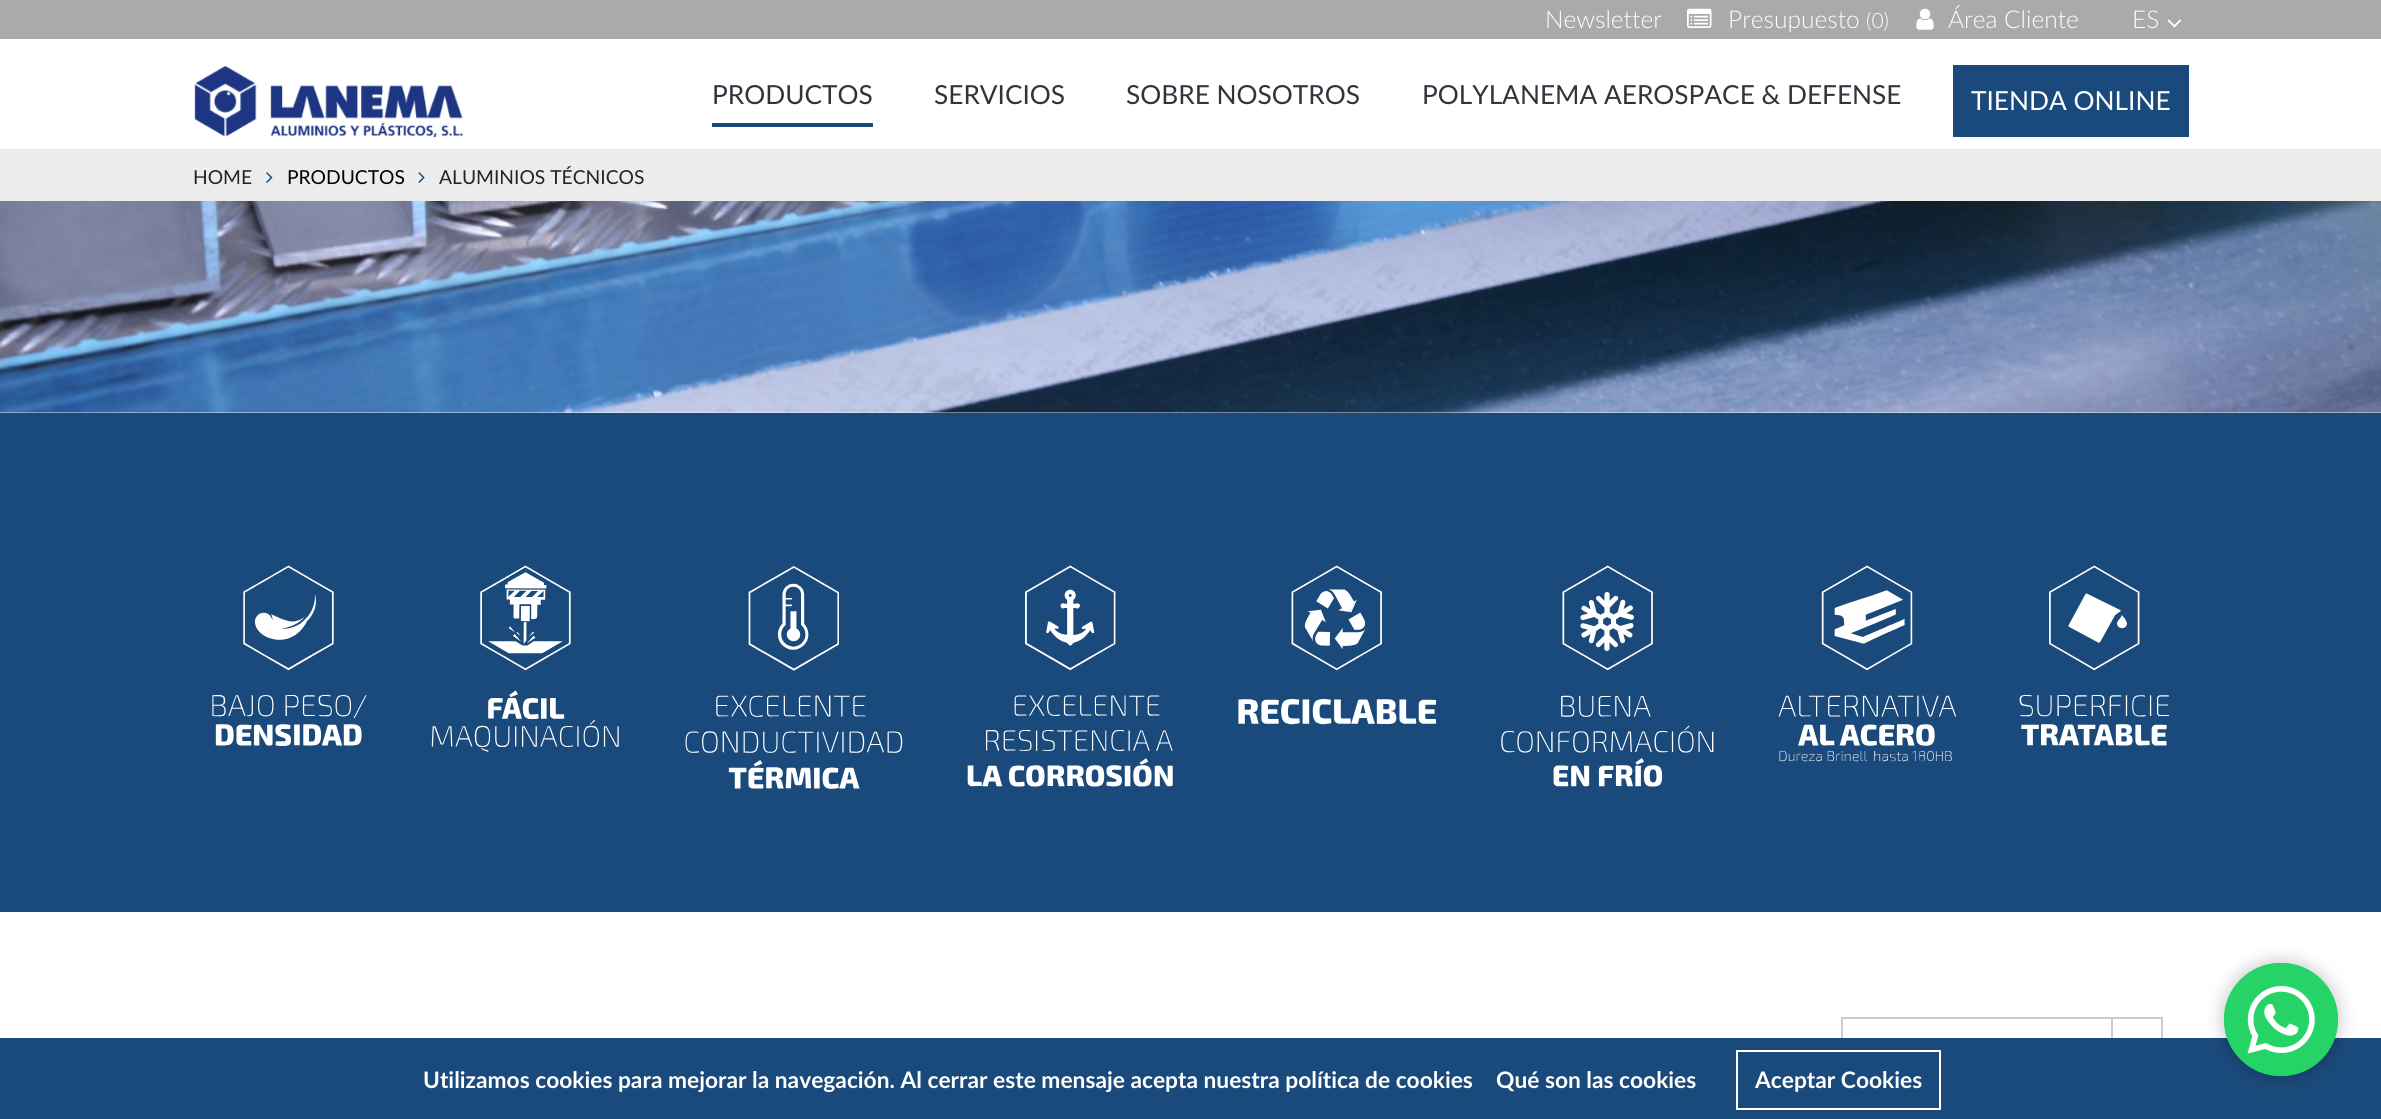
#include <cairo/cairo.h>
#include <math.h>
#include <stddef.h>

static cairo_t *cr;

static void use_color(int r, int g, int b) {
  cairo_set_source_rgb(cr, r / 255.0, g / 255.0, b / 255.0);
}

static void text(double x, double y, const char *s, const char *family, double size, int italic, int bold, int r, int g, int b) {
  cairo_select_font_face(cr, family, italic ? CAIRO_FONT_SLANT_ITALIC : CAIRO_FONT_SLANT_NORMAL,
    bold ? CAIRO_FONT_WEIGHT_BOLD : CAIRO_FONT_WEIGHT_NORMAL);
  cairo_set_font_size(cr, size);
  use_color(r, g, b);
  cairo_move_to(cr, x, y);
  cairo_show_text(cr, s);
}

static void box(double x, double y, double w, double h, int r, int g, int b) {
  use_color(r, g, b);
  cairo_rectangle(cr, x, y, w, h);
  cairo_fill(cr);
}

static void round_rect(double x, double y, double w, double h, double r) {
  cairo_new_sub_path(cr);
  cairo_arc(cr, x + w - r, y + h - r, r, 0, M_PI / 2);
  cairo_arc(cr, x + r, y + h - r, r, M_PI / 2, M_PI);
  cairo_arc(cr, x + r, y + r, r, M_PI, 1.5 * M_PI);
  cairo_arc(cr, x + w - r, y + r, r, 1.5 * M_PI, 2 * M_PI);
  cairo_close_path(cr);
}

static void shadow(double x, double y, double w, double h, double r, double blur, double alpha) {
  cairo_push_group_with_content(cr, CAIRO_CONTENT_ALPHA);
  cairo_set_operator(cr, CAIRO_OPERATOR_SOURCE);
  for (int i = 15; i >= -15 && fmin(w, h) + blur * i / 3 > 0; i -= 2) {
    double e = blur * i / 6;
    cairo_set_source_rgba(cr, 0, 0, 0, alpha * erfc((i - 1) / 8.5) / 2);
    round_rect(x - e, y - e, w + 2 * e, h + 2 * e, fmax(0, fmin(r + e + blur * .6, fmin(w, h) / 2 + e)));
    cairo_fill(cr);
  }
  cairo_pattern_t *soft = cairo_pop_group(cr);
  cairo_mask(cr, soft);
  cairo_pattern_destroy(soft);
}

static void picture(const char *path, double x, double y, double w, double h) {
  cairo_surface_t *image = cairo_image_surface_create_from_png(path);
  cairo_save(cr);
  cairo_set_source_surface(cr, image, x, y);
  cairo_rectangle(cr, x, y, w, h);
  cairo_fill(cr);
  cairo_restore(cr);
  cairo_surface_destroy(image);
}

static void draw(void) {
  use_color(255, 255, 255);
  cairo_paint(cr);
  box(0, 0, 2381, 39, 170, 170, 170);
  picture("img_01.png", 1687, 8, 25, 20);
  picture("img_02.png", 1916, 8, 18, 22);
  picture("img_03.png", 2167, 19, 15, 9);
  picture("img_04.png", 194, 66, 270, 72);
  box(712, 123, 161, 4, 26, 74, 123);
  box(1953, 65, 236, 72, 26, 74, 123);
  box(0, 149, 2381, 52, 236, 236, 236);
  picture("img_05.png", 266, 172, 7, 11);
  picture("img_06.png", 418, 172, 7, 11);
  picture("img_07.png", 0, 201, 2381, 212);
  box(0, 413, 2381, 499, 26, 74, 123);
  picture("img_08.png", 212, 565, 1957, 224);
  cairo_rectangle(cr, 1842, 1018, 320, 68);
  use_color(203, 203, 203);
  cairo_stroke(cr);
  box(2111, 1019, 2, 19, 204, 204, 204);
  box(0, 1038, 2381, 81, 26, 74, 123);
  cairo_rectangle(cr, 1737, 1051, 203, 58);
  use_color(255, 255, 255);
  cairo_stroke(cr);
  use_color(0, 0, 0);
  shadow(2224, 963, 114, 113, 56.5, 9, 0.25);
  use_color(37, 211, 102);
  round_rect(2224, 963, 114, 113, 56.5);
  cairo_fill(cr);
  picture("img_09.png", 2224, 963, 114, 113);
  text(1545, 28, "Newsletter", "Lato Light", 24.5, 0, 0, 255, 255, 255);
  text(1728, 28, "Presupuesto", "Lato Light", 24.5, 0, 0, 255, 255, 255);
  text(1866, 28, "(0)", "Lato Light", 21, 0, 0, 255, 255, 255);
  text(1948, 28, "Área Cliente", "Lato Light", 24.5, 0, 0, 255, 255, 255);
  text(2132, 28, "ES", "Lato Light", 24.5, 0, 0, 255, 255, 255);
  text(712, 104, "PRODUCTOS", "Lato", 26.25, 0, 0, 49, 52, 61);
  text(934, 104, "SERVICIOS", "Lato", 26.25, 0, 0, 49, 52, 61);
  text(1126, 104, "SOBRE NOSOTROS", "Lato", 26.25, 0, 0, 49, 52, 61);
  text(1422, 104, "POLYLANEMA AEROSPACE & DEFENSE", "Lato", 26.25, 0, 0, 49, 52, 61);
  text(1971, 110, "TIENDA ONLINE", "Lato", 26.25, 0, 0, 255, 255, 255);
  text(193, 184, "HOME", "Lato", 19.25, 0, 0, 35, 35, 35);
  text(287, 184, "PRODUCTOS", "Lato", 19.25, 0, 0, 0, 0, 0);
  text(439, 184, "ALUMINIOS TÉCNICOS", "Lato", 19.25, 0, 0, 35, 35, 35);
  text(423, 1088, "Utilizamos cookies para mejorar la navegación. Al cerrar este mensaje acepta nuestra política de cookies", "Lato", 22.75, 0, 1, 255, 255, 255);
  text(1496, 1088, "Qué son las cookies", "Lato", 22.75, 0, 1, 255, 255, 255);
  text(1755, 1088, "Aceptar Cookies", "Lato", 22.75, 0, 1, 255, 255, 255);
}

int main(void) {
  cairo_surface_t *surface = cairo_image_surface_create(CAIRO_FORMAT_RGB24, 2381, 1119);
  cr = cairo_create(surface);
  cairo_font_options_t *options = cairo_font_options_create();
  cairo_font_options_set_hint_metrics(options, CAIRO_HINT_METRICS_OFF);
  cairo_font_options_set_hint_style(options, CAIRO_HINT_STYLE_NONE);
  cairo_set_font_options(cr, options);
  cairo_set_miter_limit(cr, 4);
  draw();
  cairo_surface_write_to_png(surface, "out.png");
  cairo_font_options_destroy(options);
  cairo_destroy(cr);
  cairo_surface_destroy(surface);
  return 0;
}
